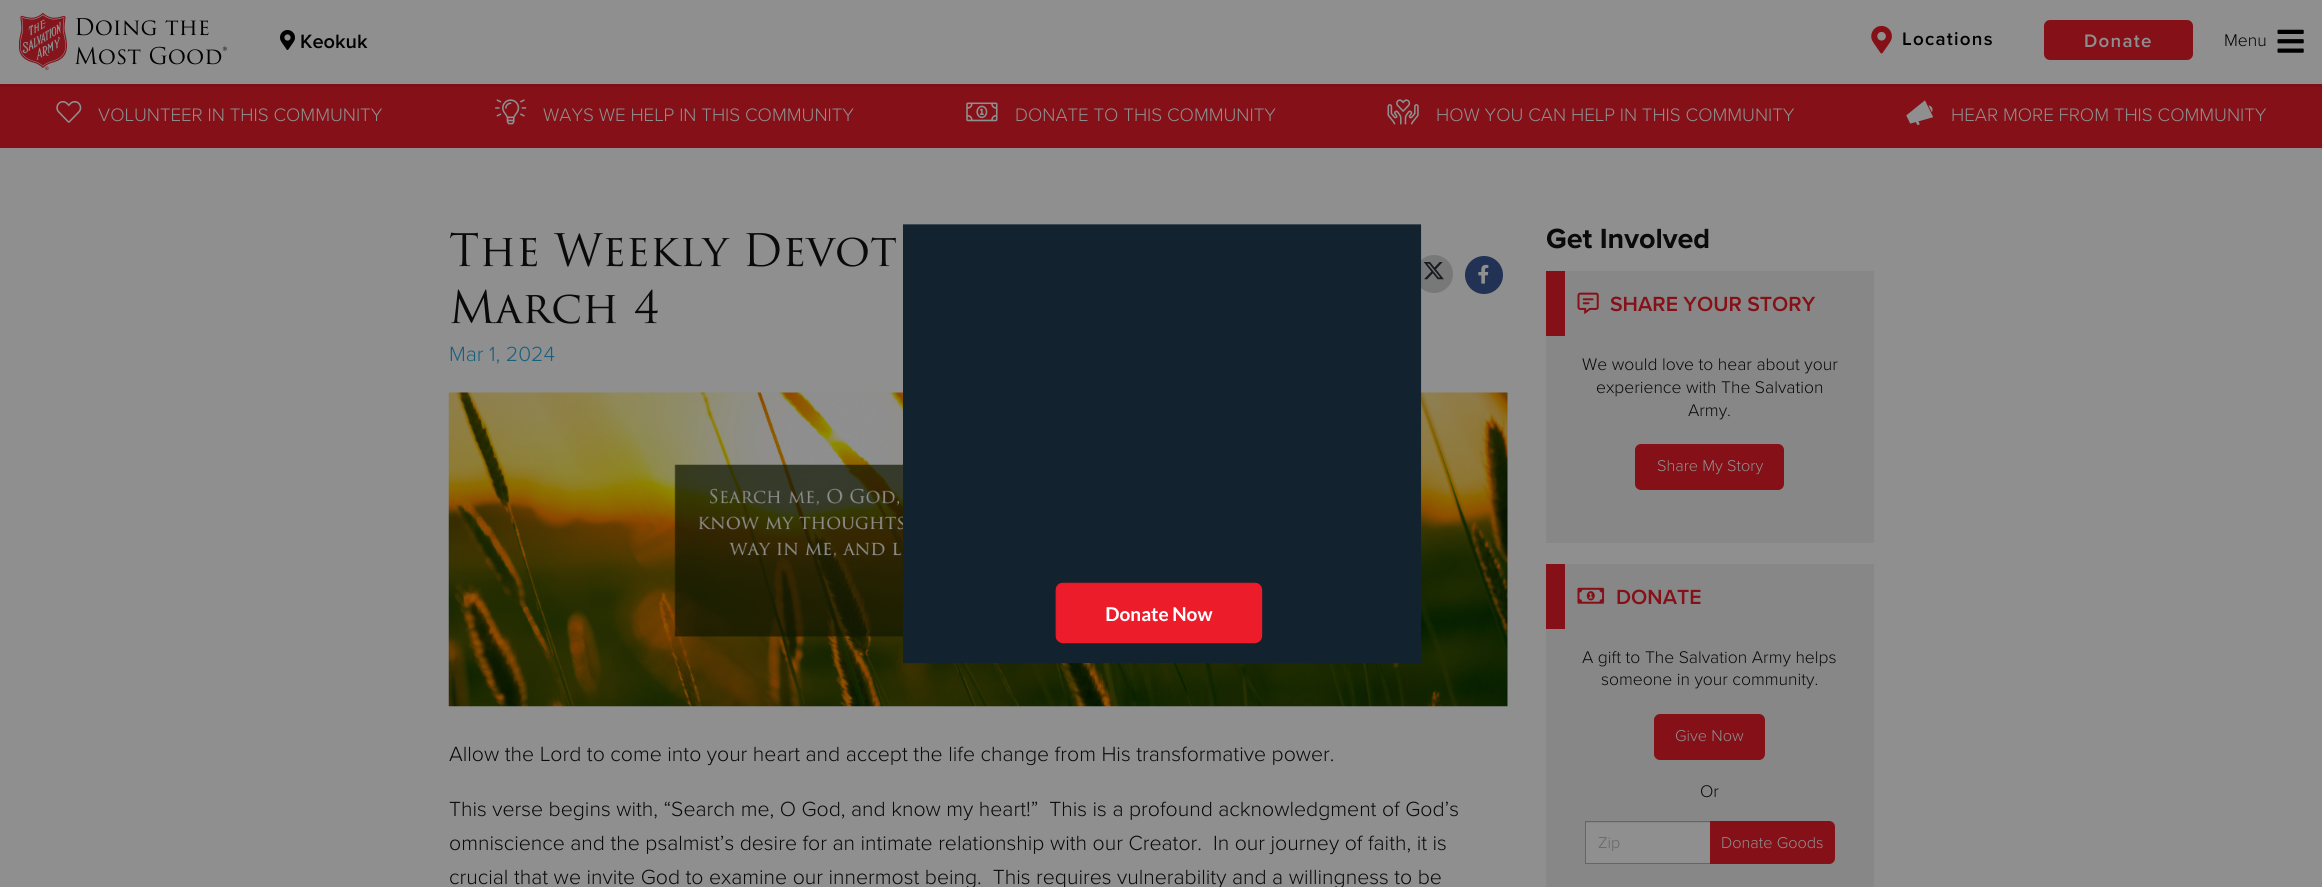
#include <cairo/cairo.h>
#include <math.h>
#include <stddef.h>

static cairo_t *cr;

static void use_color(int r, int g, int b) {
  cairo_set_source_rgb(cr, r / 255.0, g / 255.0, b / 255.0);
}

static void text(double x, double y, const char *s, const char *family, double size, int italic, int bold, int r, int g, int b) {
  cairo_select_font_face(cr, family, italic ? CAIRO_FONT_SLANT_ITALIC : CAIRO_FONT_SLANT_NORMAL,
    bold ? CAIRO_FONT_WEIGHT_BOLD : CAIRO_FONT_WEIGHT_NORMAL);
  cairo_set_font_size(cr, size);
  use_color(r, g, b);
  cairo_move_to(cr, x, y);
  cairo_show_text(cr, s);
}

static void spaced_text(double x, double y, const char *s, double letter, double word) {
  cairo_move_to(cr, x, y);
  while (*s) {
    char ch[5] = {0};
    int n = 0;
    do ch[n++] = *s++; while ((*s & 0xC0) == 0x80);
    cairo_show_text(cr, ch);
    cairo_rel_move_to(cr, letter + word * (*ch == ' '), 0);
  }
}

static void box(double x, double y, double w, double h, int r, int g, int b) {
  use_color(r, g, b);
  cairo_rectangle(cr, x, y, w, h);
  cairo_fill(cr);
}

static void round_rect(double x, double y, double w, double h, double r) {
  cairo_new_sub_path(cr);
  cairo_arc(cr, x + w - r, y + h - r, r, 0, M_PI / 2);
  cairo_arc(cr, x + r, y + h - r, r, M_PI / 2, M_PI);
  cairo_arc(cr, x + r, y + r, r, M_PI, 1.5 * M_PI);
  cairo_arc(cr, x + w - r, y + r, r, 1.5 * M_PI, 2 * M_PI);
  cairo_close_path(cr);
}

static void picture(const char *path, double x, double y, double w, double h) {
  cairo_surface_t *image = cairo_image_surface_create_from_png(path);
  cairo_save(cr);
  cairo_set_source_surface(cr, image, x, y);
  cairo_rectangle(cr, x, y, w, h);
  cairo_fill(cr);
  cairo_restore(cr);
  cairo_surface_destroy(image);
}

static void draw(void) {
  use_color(143, 143, 143);
  cairo_paint(cr);
  picture("img_01.png", 19, 13, 49, 57);
  picture("img_02.png", 280, 30, 15, 20);
  picture("img_03.png", 1871, 25, 21, 29);
  use_color(133, 16, 24);
  round_rect(2045.5, 21.5, 146, 37, 4.5);
  cairo_fill_preserve(cr);
  cairo_set_line_width(cr, 3);
  cairo_stroke(cr);
  picture("img_04.png", 2277, 29, 27, 24);
  box(0, 84, 2322, 3, 126, 15, 23);
  box(0, 87, 2322, 61, 133, 16, 24);
  picture("img_05.png", 56, 100, 26, 23);
  picture("img_06.png", 495, 99, 32, 26);
  picture("img_07.png", 966, 102, 32, 20);
  picture("img_08.png", 1387, 99, 32, 26);
  picture("img_09.png", 1906, 100, 28, 26);
  use_color(120, 120, 120);
  cairo_arc(cr, 1434, 274, 19, 0, 2 * M_PI);
  cairo_fill(cr);
  picture("img_10.png", 1423, 262, 21, 18);
  use_color(33, 50, 85);
  cairo_arc(cr, 1484, 275, 19, 0, 2 * M_PI);
  cairo_fill(cr);
  picture("img_11.png", 1478, 264, 11, 20);
  picture("img_12.png", 448, 392, 1060, 315);
  box(1546, 271, 328, 272, 134, 135, 134);
  box(1546, 271, 19, 65, 133, 16, 24);
  picture("img_13.png", 1577, 292, 22, 22);
  round_rect(1636.5, 445.5, 146, 43, 4.5);
  cairo_fill_preserve(cr);
  cairo_stroke(cr);
  box(1546, 564, 328, 323, 134, 135, 134);
  box(1546, 564, 19, 65, 133, 16, 24);
  picture("img_14.png", 1577, 587, 28, 17);
  round_rect(1655.5, 715.5, 108, 43, 4.5);
  cairo_fill_preserve(cr);
  cairo_stroke(cr);
  box(1586, 823, 124, 40, 143, 143, 143);
  box(1585, 821, 125, 1, 98, 102, 105);
  box(1585, 863, 125, 1, 98, 102, 105);
  box(1585, 821, 1, 43, 98, 102, 105);
  use_color(133, 16, 24);
  cairo_new_path(cr);
  cairo_move_to(cr, 1710, 821);
  cairo_line_to(cr, 1829, 821);
  cairo_curve_to(cr, 1832.5, 821, 1835, 823.5, 1835, 827);
  cairo_line_to(cr, 1835, 858);
  cairo_curve_to(cr, 1835, 861.5, 1832.5, 864, 1829, 864);
  cairo_line_to(cr, 1710, 864);
  cairo_close_path(cr);
  cairo_fill(cr);
  picture("img_15.png", 903, 224, 519, 440);
  text(74, 35, "Doing the", "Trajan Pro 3", 22.5, 0, 0, 0, 0, 0);
  text(74, 64, "Most Good®", "Trajan Pro 3", 22.5, 0, 0, 0, 0, 0);
  text(300, 48, "Keokuk", "Proxima Nova SemiBold", 20, 0, 0, 0, 0, 0);
  cairo_set_font_size(cr, 18.75);
  spaced_text(1902, 45, "Locations", 1.25, 0);
  use_color(143, 143, 143);
  spaced_text(2084, 47, "Donate", 1.25, 0);
  text(2224, 46, "Menu", "Proxima Nova Light", 17.5, 0, 0, 0, 0, 0);
  text(98, 121, "VOLUNTEER IN THIS COMMUNITY", "Proxima Nova Light", 18.75, 0, 0, 143, 143, 143);
  text(543, 121, "WAYS WE HELP IN THIS COMMUNITY", "Proxima Nova Light", 18.75, 0, 0, 143, 143, 143);
  text(1015, 121, "DONATE TO THIS COMMUNITY", "Proxima Nova Light", 18.75, 0, 0, 143, 143, 143);
  text(1436, 121, "HOW YOU CAN HELP IN THIS COMMUNITY", "Proxima Nova Light", 18.75, 0, 0, 143, 143, 143);
  text(1951, 121, "HEAR MORE FROM THIS COMMUNITY", "Proxima Nova Light", 18.75, 0, 0, 143, 143, 143);
  text(449, 266, "The Weekly Devot", "Trajan Pro 3", 43.75, 0, 0, 10, 10, 10);
  text(449, 323, "March 4", "Trajan Pro 3", 43.75, 0, 0, 10, 10, 10);
  text(449, 361, "Mar 1, 2024", "Proxima Nova Light", 21.25, 0, 0, 22, 96, 127);
  text(449, 761, "Allow the Lord to come into your heart and accept the life change from His transformative power.", "Proxima Nova Light", 21.25, 0, 0, 10, 10, 10);
  text(449, 816, "This verse begins with, “Search me, O God, and know my heart!”  This is a profound acknowledgment of God’s", "Proxima Nova Light", 21.25, 0, 0, 10, 10, 10);
  text(449, 850, "omniscience and the psalmist’s desire for an intimate relationship with our Creator.  In our journey of faith, it is", "Proxima Nova Light", 21.25, 0, 0, 10, 10, 10);
  text(449, 884, "crucial that we invite God to examine our innermost being.  This requires vulnerability and a willingness to be", "Proxima Nova Light", 21.25, 0, 0, 10, 10, 10);
  text(1546, 248, "Get Involved", "Proxima Nova", 28.75, 0, 1, 10, 10, 10);
  text(1610, 311, "SHARE YOUR STORY", "Proxima Nova SemiBold", 21.25, 0, 0, 133, 16, 24);
  text(1582, 370, "We would love to hear about your", "Proxima Nova Light", 17.5, 0, 0, 10, 10, 10);
  text(1596, 393, "experience with The Salvation", "Proxima Nova Light", 17.5, 0, 0, 10, 10, 10);
  text(1688, 416, "Army.", "Proxima Nova Light", 17.5, 0, 0, 10, 10, 10);
  text(1657, 471, "Share My Story", "Proxima Nova Light", 16.25, 0, 0, 143, 143, 143);
  text(1616, 604, "DONATE", "Proxima Nova SemiBold", 21.25, 0, 0, 133, 16, 24);
  text(1582, 663, "A gift to The Salvation Army helps", "Proxima Nova Light", 17.5, 0, 0, 10, 10, 10);
  text(1601, 685, "someone in your community.", "Proxima Nova Light", 17.5, 0, 0, 10, 10, 10);
  text(1675, 741, "Give Now", "Proxima Nova Light", 16.25, 0, 0, 143, 143, 143);
  text(1700, 797, "Or", "Proxima Nova Light", 17.5, 0, 0, 10, 10, 10);
  text(1598, 848, "Zip", "Proxima Nova Light", 16.25, 0, 0, 98, 102, 105);
  text(1721, 848, "Donate Goods", "Proxima Nova Light", 16.25, 0, 0, 143, 143, 143);
}

int main(void) {
  cairo_surface_t *surface = cairo_image_surface_create(CAIRO_FORMAT_RGB24, 2322, 887);
  cr = cairo_create(surface);
  cairo_font_options_t *options = cairo_font_options_create();
  cairo_font_options_set_hint_metrics(options, CAIRO_HINT_METRICS_OFF);
  cairo_font_options_set_hint_style(options, CAIRO_HINT_STYLE_NONE);
  cairo_set_font_options(cr, options);
  cairo_set_miter_limit(cr, 4);
  draw();
  cairo_surface_write_to_png(surface, "out.png");
  cairo_font_options_destroy(options);
  cairo_destroy(cr);
  cairo_surface_destroy(surface);
  return 0;
}
